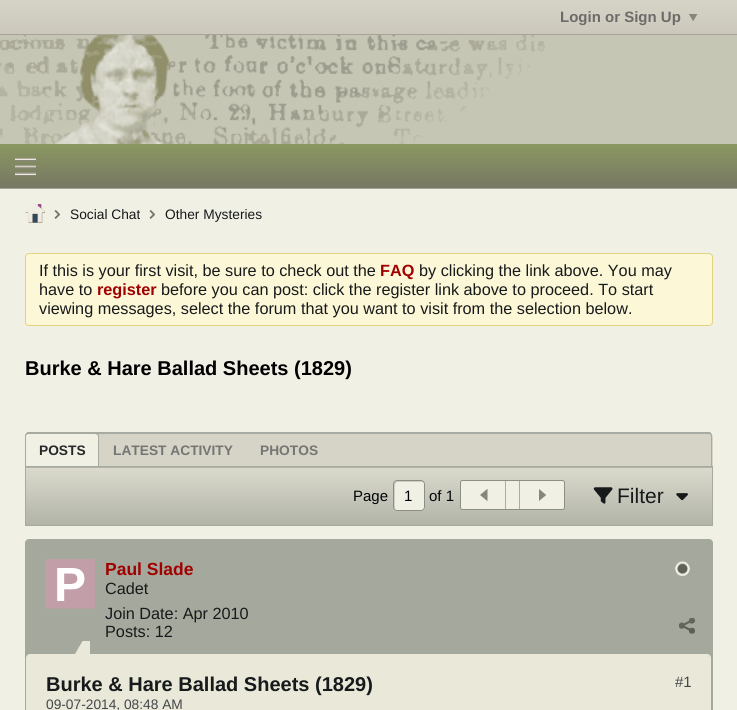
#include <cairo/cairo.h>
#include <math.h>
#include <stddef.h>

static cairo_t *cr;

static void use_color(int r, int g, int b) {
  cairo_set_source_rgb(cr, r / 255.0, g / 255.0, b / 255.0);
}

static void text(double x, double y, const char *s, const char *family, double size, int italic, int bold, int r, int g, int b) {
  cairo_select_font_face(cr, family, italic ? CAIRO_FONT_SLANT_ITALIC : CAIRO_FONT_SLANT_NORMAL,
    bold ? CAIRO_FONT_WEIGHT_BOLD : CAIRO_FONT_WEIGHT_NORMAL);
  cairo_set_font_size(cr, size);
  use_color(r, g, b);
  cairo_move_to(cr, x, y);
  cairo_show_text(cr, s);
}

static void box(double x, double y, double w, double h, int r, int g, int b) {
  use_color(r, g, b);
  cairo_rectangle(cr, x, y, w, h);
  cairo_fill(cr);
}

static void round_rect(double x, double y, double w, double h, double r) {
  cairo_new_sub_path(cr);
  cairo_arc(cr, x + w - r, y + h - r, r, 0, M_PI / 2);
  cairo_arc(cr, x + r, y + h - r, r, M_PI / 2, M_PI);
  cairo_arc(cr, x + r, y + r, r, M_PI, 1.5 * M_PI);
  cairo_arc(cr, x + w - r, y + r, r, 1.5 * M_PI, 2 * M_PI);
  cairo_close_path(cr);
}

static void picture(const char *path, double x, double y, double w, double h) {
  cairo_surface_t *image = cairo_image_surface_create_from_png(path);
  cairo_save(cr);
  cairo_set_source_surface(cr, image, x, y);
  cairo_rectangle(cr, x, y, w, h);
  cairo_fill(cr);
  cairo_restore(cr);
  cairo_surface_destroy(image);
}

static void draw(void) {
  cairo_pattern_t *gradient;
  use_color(198, 198, 181);
  cairo_paint(cr);
  picture("img_01.png", 0, 35, 551, 109);
  gradient = cairo_pattern_create_linear(369, 0, 369, 34);
  cairo_pattern_add_color_stop_rgba(gradient, 0, 0.835, 0.831, 0.776, 1);
  cairo_pattern_add_color_stop_rgba(gradient, 1, 0.8, 0.788, 0.737, 1);
  cairo_set_source(cr, gradient);
  cairo_pattern_destroy(gradient);
  cairo_rectangle(cr, 0, 0, 737, 34);
  cairo_fill(cr);
  box(0, 34, 737, 1, 164, 164, 151);
  picture("img_02.png", 689, 14, 9, 7);
  gradient = cairo_pattern_create_linear(369, 144, 369, 188);
  cairo_pattern_add_color_stop_rgba(gradient, 0, 0.541, 0.596, 0.376, 1);
  cairo_pattern_add_color_stop_rgba(gradient, 1, 0.467, 0.467, 0.392, 1);
  cairo_set_source(cr, gradient);
  cairo_pattern_destroy(gradient);
  cairo_rectangle(cr, 0, 144, 737, 44);
  cairo_fill(cr);
  box(0, 188, 737, 1, 161, 163, 150);
  picture("img_03.png", 15, 158, 21, 18);
  box(0, 189, 737, 521, 241, 240, 229);
  picture("img_04.png", 25, 204, 20, 19);
  picture("img_05.png", 54, 210, 6, 9);
  picture("img_05.png", 149, 210, 6, 9);
  use_color(252, 247, 215);
  round_rect(25.5, 253.5, 687, 72, 3.5);
  cairo_fill_preserve(cr);
  use_color(225, 212, 126);
  cairo_set_line_width(cr, 1);
  cairo_stroke(cr);
  use_color(213, 212, 198);
  cairo_new_path(cr);
  cairo_move_to(cr, 29, 433);
  cairo_line_to(cr, 709, 433);
  cairo_curve_to(cr, 711, 433, 713, 435, 713, 437);
  cairo_line_to(cr, 713, 466);
  cairo_line_to(cr, 25, 466);
  cairo_line_to(cr, 25, 437);
  cairo_curve_to(cr, 25, 435, 27, 433, 29, 433);
  cairo_close_path(cr);
  cairo_fill(cr);
  use_color(166, 170, 160);
  cairo_set_fill_rule(cr, CAIRO_FILL_RULE_EVEN_ODD);
  cairo_new_path(cr);
  cairo_move_to(cr, 29, 432);
  cairo_line_to(cr, 709, 432);
  cairo_curve_to(cr, 711, 432, 712, 434, 712, 436);
  cairo_line_to(cr, 712, 466);
  cairo_line_to(cr, 25, 466);
  cairo_line_to(cr, 25, 436);
  cairo_curve_to(cr, 25, 434, 27, 432, 29, 432);
  cairo_close_path(cr);
  cairo_move_to(cr, 29, 434);
  cairo_line_to(cr, 709, 434);
  cairo_curve_to(cr, 710, 434, 711, 435, 711, 436);
  cairo_line_to(cr, 711, 466);
  cairo_line_to(cr, 26, 466);
  cairo_line_to(cr, 26, 436);
  cairo_curve_to(cr, 26, 435, 27, 434, 29, 434);
  cairo_close_path(cr);
  cairo_fill(cr);
  use_color(241, 240, 229);
  cairo_new_path(cr);
  cairo_move_to(cr, 29, 433);
  cairo_line_to(cr, 95, 433);
  cairo_curve_to(cr, 97, 433, 99, 435, 99, 437);
  cairo_line_to(cr, 99, 466);
  cairo_line_to(cr, 25, 466);
  cairo_line_to(cr, 25, 437);
  cairo_curve_to(cr, 25, 435, 27, 433, 29, 433);
  cairo_close_path(cr);
  cairo_fill(cr);
  use_color(166, 170, 160);
  cairo_new_path(cr);
  cairo_move_to(cr, 29, 432);
  cairo_line_to(cr, 95, 432);
  cairo_curve_to(cr, 97, 432, 99, 434, 99, 436);
  cairo_line_to(cr, 99, 466);
  cairo_line_to(cr, 25, 466);
  cairo_line_to(cr, 25, 436);
  cairo_curve_to(cr, 25, 434, 27, 432, 29, 432);
  cairo_close_path(cr);
  cairo_move_to(cr, 29, 434);
  cairo_line_to(cr, 95, 434);
  cairo_curve_to(cr, 96, 434, 98, 435, 98, 436);
  cairo_line_to(cr, 98, 466);
  cairo_line_to(cr, 26, 466);
  cairo_line_to(cr, 26, 436);
  cairo_curve_to(cr, 26, 435, 27, 434, 29, 434);
  cairo_close_path(cr);
  cairo_fill(cr);
  gradient = cairo_pattern_create_linear(369, 410, 369, 468);
  cairo_pattern_add_color_stop_rgba(gradient, 0, 0.859, 0.855, 0.804, 1);
  cairo_pattern_add_color_stop_rgba(gradient, 1, 0.698, 0.706, 0.659, 1);
  cairo_set_source(cr, gradient);
  cairo_pattern_destroy(gradient);
  cairo_rectangle(cr, 25, 467, 688, 1);
  cairo_fill(cr);
  gradient = cairo_pattern_create_linear(369, 467, 369, 525);
  cairo_pattern_add_color_stop_rgba(gradient, 0, 0.859, 0.855, 0.804, 1);
  cairo_pattern_add_color_stop_rgba(gradient, 1, 0.698, 0.706, 0.659, 1);
  cairo_set_source(cr, gradient);
  cairo_pattern_destroy(gradient);
  cairo_rectangle(cr, 26, 468, 686, 57);
  cairo_fill(cr);
  cairo_rectangle(cr, 25.5, 466.5, 687, 59);
  use_color(166, 170, 160);
  cairo_stroke(cr);
  use_color(241, 240, 229);
  round_rect(393, 480, 32, 31, 4);
  cairo_fill(cr);
  use_color(205, 204, 197);
  cairo_set_fill_rule(cr, CAIRO_FILL_RULE_WINDING);
  cairo_new_path(cr);
  cairo_move_to(cr, 398, 482);
  cairo_line_to(cr, 422, 482);
  cairo_curve_to(cr, 423, 482, 423.5, 482.5, 424, 482.5);
  cairo_curve_to(cr, 423.5, 481.5, 422.5, 481, 421.5, 481);
  cairo_line_to(cr, 396.5, 481);
  cairo_curve_to(cr, 395, 481, 394, 482, 394, 483.5);
  cairo_line_to(cr, 394, 507.5);
  cairo_curve_to(cr, 394, 508.5, 394.5, 509, 395, 509.5);
  cairo_line_to(cr, 395, 489);
  cairo_curve_to(cr, 395, 487, 394.5, 482, 398, 482);
  cairo_close_path(cr);
  cairo_fill(cr);
  round_rect(393.5, 480.5, 31, 30, 3.5);
  use_color(139, 143, 132);
  cairo_stroke(cr);
  use_color(241, 240, 229);
  round_rect(460.5, 480.5, 104, 29, 2);
  cairo_fill_preserve(cr);
  use_color(139, 143, 132);
  cairo_stroke(cr);
  box(505, 481, 1, 28, 170, 173, 162);
  picture("img_06.png", 480, 489, 8, 12);
  box(519, 481, 1, 28, 170, 173, 162);
  picture("img_07.png", 539, 489, 7, 12);
  picture("img_08.png", 593, 487, 20, 17);
  picture("img_09.png", 676, 493, 12, 8);
  use_color(165, 168, 156);
  round_rect(25.5, 539.5, 687, 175, 3.5);
  cairo_fill_preserve(cr);
  cairo_stroke(cr);
  picture("img_10.png", 45, 559, 50, 50);
  picture("img_11.png", 675, 561, 15, 15);
  picture("img_12.png", 679, 618, 16, 16);
  use_color(233, 232, 217);
  round_rect(26, 654, 685, 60, 4);
  cairo_fill(cr);
  box(83, 641, 7, 13, 233, 232, 217);
  cairo_new_path(cr);
  cairo_move_to(cr, 90, 654);
  cairo_line_to(cr, 75, 654);
  cairo_line_to(cr, 82.5, 641);
  cairo_close_path(cr);
  cairo_fill(cr);
  text(560, 22, "Login or Sign Up", "Liberation Sans", 15, 0, 1, 109, 107, 106);
  text(70, 219, "Social Chat", "Liberation Sans", 13.75, 0, 0, 23, 26, 27);
  text(165, 219, "Other Mysteries", "Liberation Sans", 13.75, 0, 0, 23, 26, 27);
  text(39, 276, "If this is your first visit, be sure to check out the", "Liberation Sans", 16.25, 0, 0, 23, 26, 27);
  text(380, 276, "FAQ", "Liberation Sans", 16.25, 0, 1, 161, 0, 0);
  text(419, 276, "by clicking the link above. You may", "Liberation Sans", 16.25, 0, 0, 23, 26, 27);
  text(39, 295, "have to", "Liberation Sans", 16.25, 0, 0, 23, 26, 27);
  text(97, 295, "register", "Liberation Sans", 16.25, 0, 1, 161, 0, 0);
  text(161, 295, "before you can post: click the register link above to proceed. To start", "Liberation Sans", 16.25, 0, 0, 23, 26, 27);
  text(39, 314, "viewing messages, select the forum that you want to visit from the selection below.", "Liberation Sans", 16.25, 0, 0, 23, 26, 27);
  text(25, 375, "Burke & Hare Ballad Sheets (1829)", "Liberation Sans", 20, 0, 1, 0, 0, 0);
  text(39, 455, "POSTS", "Liberation Sans", 13.75, 0, 1, 38, 40, 41);
  text(113, 455, "LATEST ACTIVITY", "Liberation Sans", 13.75, 0, 1, 117, 117, 117);
  text(260, 455, "PHOTOS", "Liberation Sans", 13.75, 0, 1, 117, 117, 117);
  text(353, 501, "Page", "Liberation Sans", 15, 0, 0, 0, 4, 7);
  text(404, 501, "1", "Liberation Sans", 15, 0, 0, 0, 0, 0);
  text(429, 501, "of 1", "Liberation Sans", 15, 0, 0, 0, 4, 7);
  text(617, 503, "Filter", "Liberation Sans", 21, 0, 0, 23, 26, 27);
  text(105, 575, "Paul Slade", "Liberation Sans", 17.5, 0, 1, 161, 0, 0);
  text(105, 594, "Cadet", "Liberation Sans", 16.25, 0, 0, 23, 26, 27);
  text(105, 619, "Join Date: Apr 2010", "Liberation Sans", 16.25, 0, 0, 23, 26, 27);
  text(105, 637, "Posts: 12", "Liberation Sans", 16.25, 0, 0, 23, 26, 27);
  text(46, 691, "Burke & Hare Ballad Sheets (1829)", "Liberation Sans", 20, 0, 1, 23, 26, 27);
  text(46, 709, "09-07-2014, 08:48 AM", "Liberation Sans", 13.75, 0, 0, 68, 71, 73);
  text(675, 687, "#1", "Liberation Sans", 15, 0, 0, 68, 71, 73);
}

int main(void) {
  cairo_surface_t *surface = cairo_image_surface_create(CAIRO_FORMAT_RGB24, 737, 710);
  cr = cairo_create(surface);
  cairo_font_options_t *options = cairo_font_options_create();
  cairo_font_options_set_hint_metrics(options, CAIRO_HINT_METRICS_OFF);
  cairo_font_options_set_hint_style(options, CAIRO_HINT_STYLE_NONE);
  cairo_set_font_options(cr, options);
  cairo_set_miter_limit(cr, 4);
  draw();
  cairo_surface_write_to_png(surface, "out.png");
  cairo_font_options_destroy(options);
  cairo_destroy(cr);
  cairo_surface_destroy(surface);
  return 0;
}
